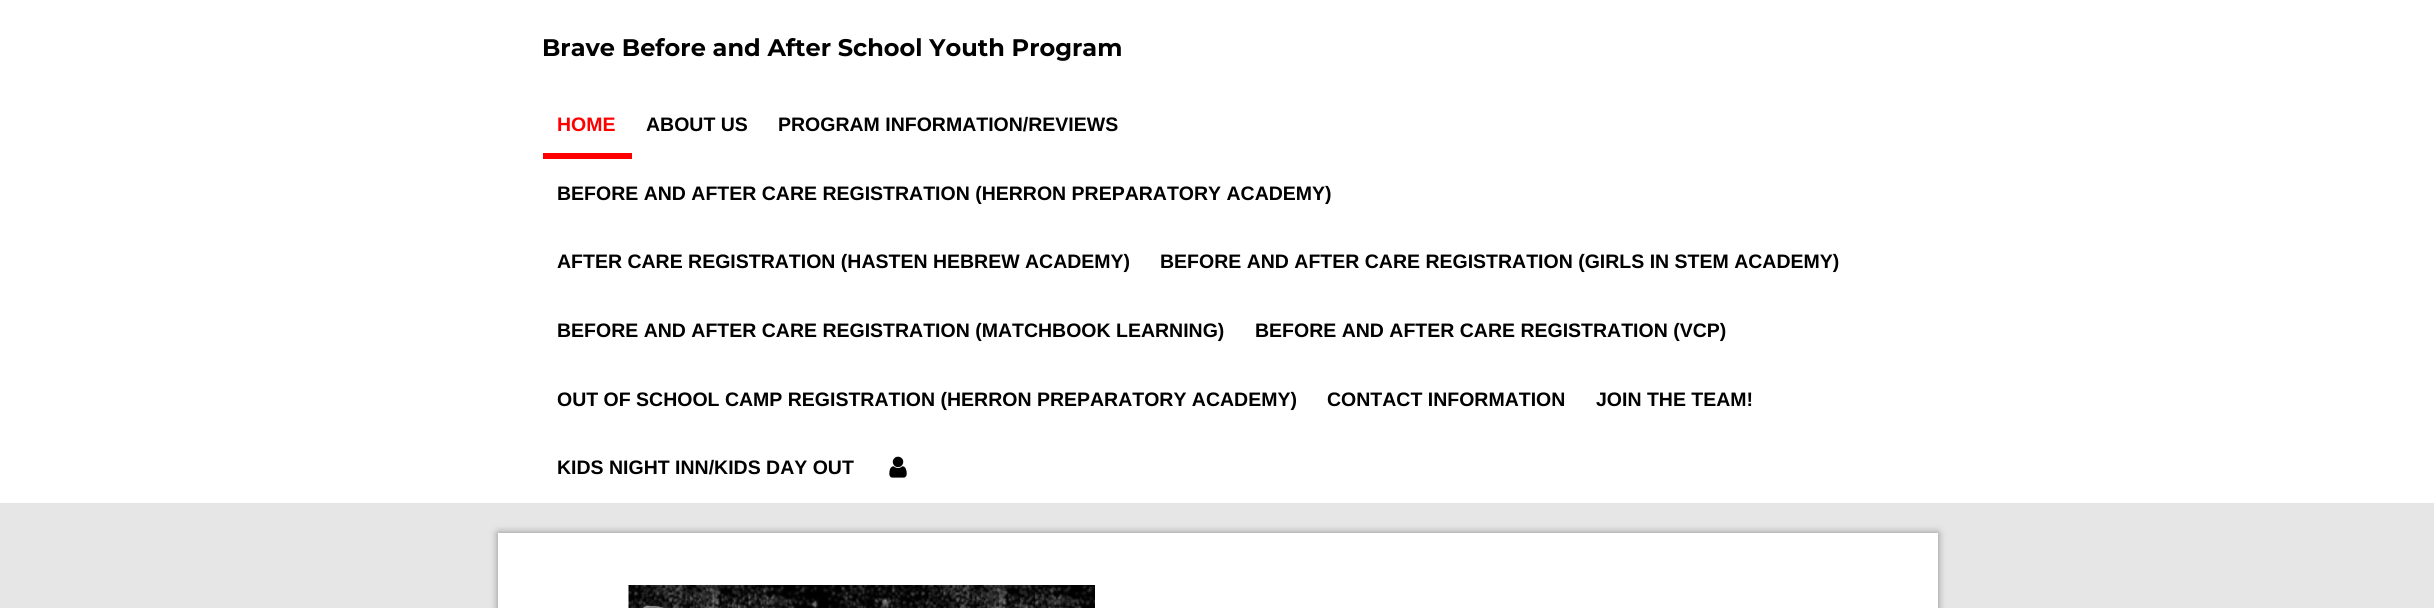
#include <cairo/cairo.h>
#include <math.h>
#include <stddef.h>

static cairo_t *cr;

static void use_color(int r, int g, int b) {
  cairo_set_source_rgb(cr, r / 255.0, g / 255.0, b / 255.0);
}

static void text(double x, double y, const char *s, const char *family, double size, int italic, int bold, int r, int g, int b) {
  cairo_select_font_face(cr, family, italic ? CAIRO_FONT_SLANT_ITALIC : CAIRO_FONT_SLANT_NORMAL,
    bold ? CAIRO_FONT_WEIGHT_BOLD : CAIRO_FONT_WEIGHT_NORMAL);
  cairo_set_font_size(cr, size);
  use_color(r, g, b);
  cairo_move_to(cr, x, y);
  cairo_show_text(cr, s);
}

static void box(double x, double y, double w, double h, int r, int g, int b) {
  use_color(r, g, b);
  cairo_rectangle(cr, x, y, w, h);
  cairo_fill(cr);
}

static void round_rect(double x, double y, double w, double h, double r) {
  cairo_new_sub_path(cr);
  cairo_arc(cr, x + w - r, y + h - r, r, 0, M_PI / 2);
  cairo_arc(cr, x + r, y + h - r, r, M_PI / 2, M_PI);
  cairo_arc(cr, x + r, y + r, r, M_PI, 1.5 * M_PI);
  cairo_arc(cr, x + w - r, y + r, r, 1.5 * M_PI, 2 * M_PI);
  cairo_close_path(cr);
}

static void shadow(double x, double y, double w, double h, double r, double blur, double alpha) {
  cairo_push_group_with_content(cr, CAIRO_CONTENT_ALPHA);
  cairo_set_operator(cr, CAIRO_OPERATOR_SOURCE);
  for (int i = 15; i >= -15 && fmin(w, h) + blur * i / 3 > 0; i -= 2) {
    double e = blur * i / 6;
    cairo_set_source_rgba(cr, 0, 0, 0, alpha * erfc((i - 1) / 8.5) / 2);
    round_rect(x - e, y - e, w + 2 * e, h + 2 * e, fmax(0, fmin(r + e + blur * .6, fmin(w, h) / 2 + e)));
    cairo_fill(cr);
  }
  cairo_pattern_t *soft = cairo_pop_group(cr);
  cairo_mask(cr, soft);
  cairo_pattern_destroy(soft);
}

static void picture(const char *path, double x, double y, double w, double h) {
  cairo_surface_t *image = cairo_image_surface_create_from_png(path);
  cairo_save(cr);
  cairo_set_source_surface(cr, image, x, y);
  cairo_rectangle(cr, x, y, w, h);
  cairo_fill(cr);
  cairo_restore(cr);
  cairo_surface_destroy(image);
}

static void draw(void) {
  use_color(255, 255, 255);
  cairo_paint(cr);
  box(543, 153, 89, 6, 255, 0, 0);
  picture("img_01.png", 889, 456, 18, 22);
  box(0, 503, 2434, 105, 230, 230, 230);
  use_color(0, 0, 0);
  shadow(498, 533, 1440, 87, 0, 4, 0.4);
  box(498, 533, 1440, 75, 255, 255, 255);
  picture("img_02.png", 628, 585, 467, 23);
  text(542, 56, "Brave Before and After School Youth Program", "Montserrat", 24, 0, 1, 0, 0, 0);
  text(557, 131, "HOME", "Liberation Sans", 19.5, 0, 1, 255, 0, 0);
  text(646, 131, "ABOUT US", "Liberation Sans", 19.5, 0, 1, 0, 0, 0);
  text(778, 131, "PROGRAM INFORMATION/REVIEWS", "Liberation Sans", 19.5, 0, 1, 0, 0, 0);
  text(557, 200, "BEFORE AND AFTER CARE REGISTRATION (HERRON PREPARATORY ACADEMY)", "Liberation Sans", 19.5, 0, 1, 0, 0, 0);
  text(557, 268, "AFTER CARE REGISTRATION (HASTEN HEBREW ACADEMY)", "Liberation Sans", 19.5, 0, 1, 0, 0, 0);
  text(1160, 268, "BEFORE AND AFTER CARE REGISTRATION (GIRLS IN STEM ACADEMY)", "Liberation Sans", 19.5, 0, 1, 0, 0, 0);
  text(557, 337, "BEFORE AND AFTER CARE REGISTRATION (MATCHBOOK LEARNING)", "Liberation Sans", 19.5, 0, 1, 0, 0, 0);
  text(1255, 337, "BEFORE AND AFTER CARE REGISTRATION (VCP)", "Liberation Sans", 19.5, 0, 1, 0, 0, 0);
  text(557, 406, "OUT OF SCHOOL CAMP REGISTRATION (HERRON PREPARATORY ACADEMY)", "Liberation Sans", 19.5, 0, 1, 0, 0, 0);
  text(1327, 406, "CONTACT INFORMATION", "Liberation Sans", 19.5, 0, 1, 0, 0, 0);
  text(1596, 406, "JOIN THE TEAM!", "Liberation Sans", 19.5, 0, 1, 0, 0, 0);
  text(557, 474, "KIDS NIGHT INN/KIDS DAY OUT", "Liberation Sans", 19.5, 0, 1, 0, 0, 0);
}

int main(void) {
  cairo_surface_t *surface = cairo_image_surface_create(CAIRO_FORMAT_RGB24, 2434, 608);
  cr = cairo_create(surface);
  cairo_font_options_t *options = cairo_font_options_create();
  cairo_font_options_set_hint_metrics(options, CAIRO_HINT_METRICS_OFF);
  cairo_font_options_set_hint_style(options, CAIRO_HINT_STYLE_NONE);
  cairo_set_font_options(cr, options);
  cairo_set_miter_limit(cr, 4);
  draw();
  cairo_surface_write_to_png(surface, "out.png");
  cairo_font_options_destroy(options);
  cairo_destroy(cr);
  cairo_surface_destroy(surface);
  return 0;
}
